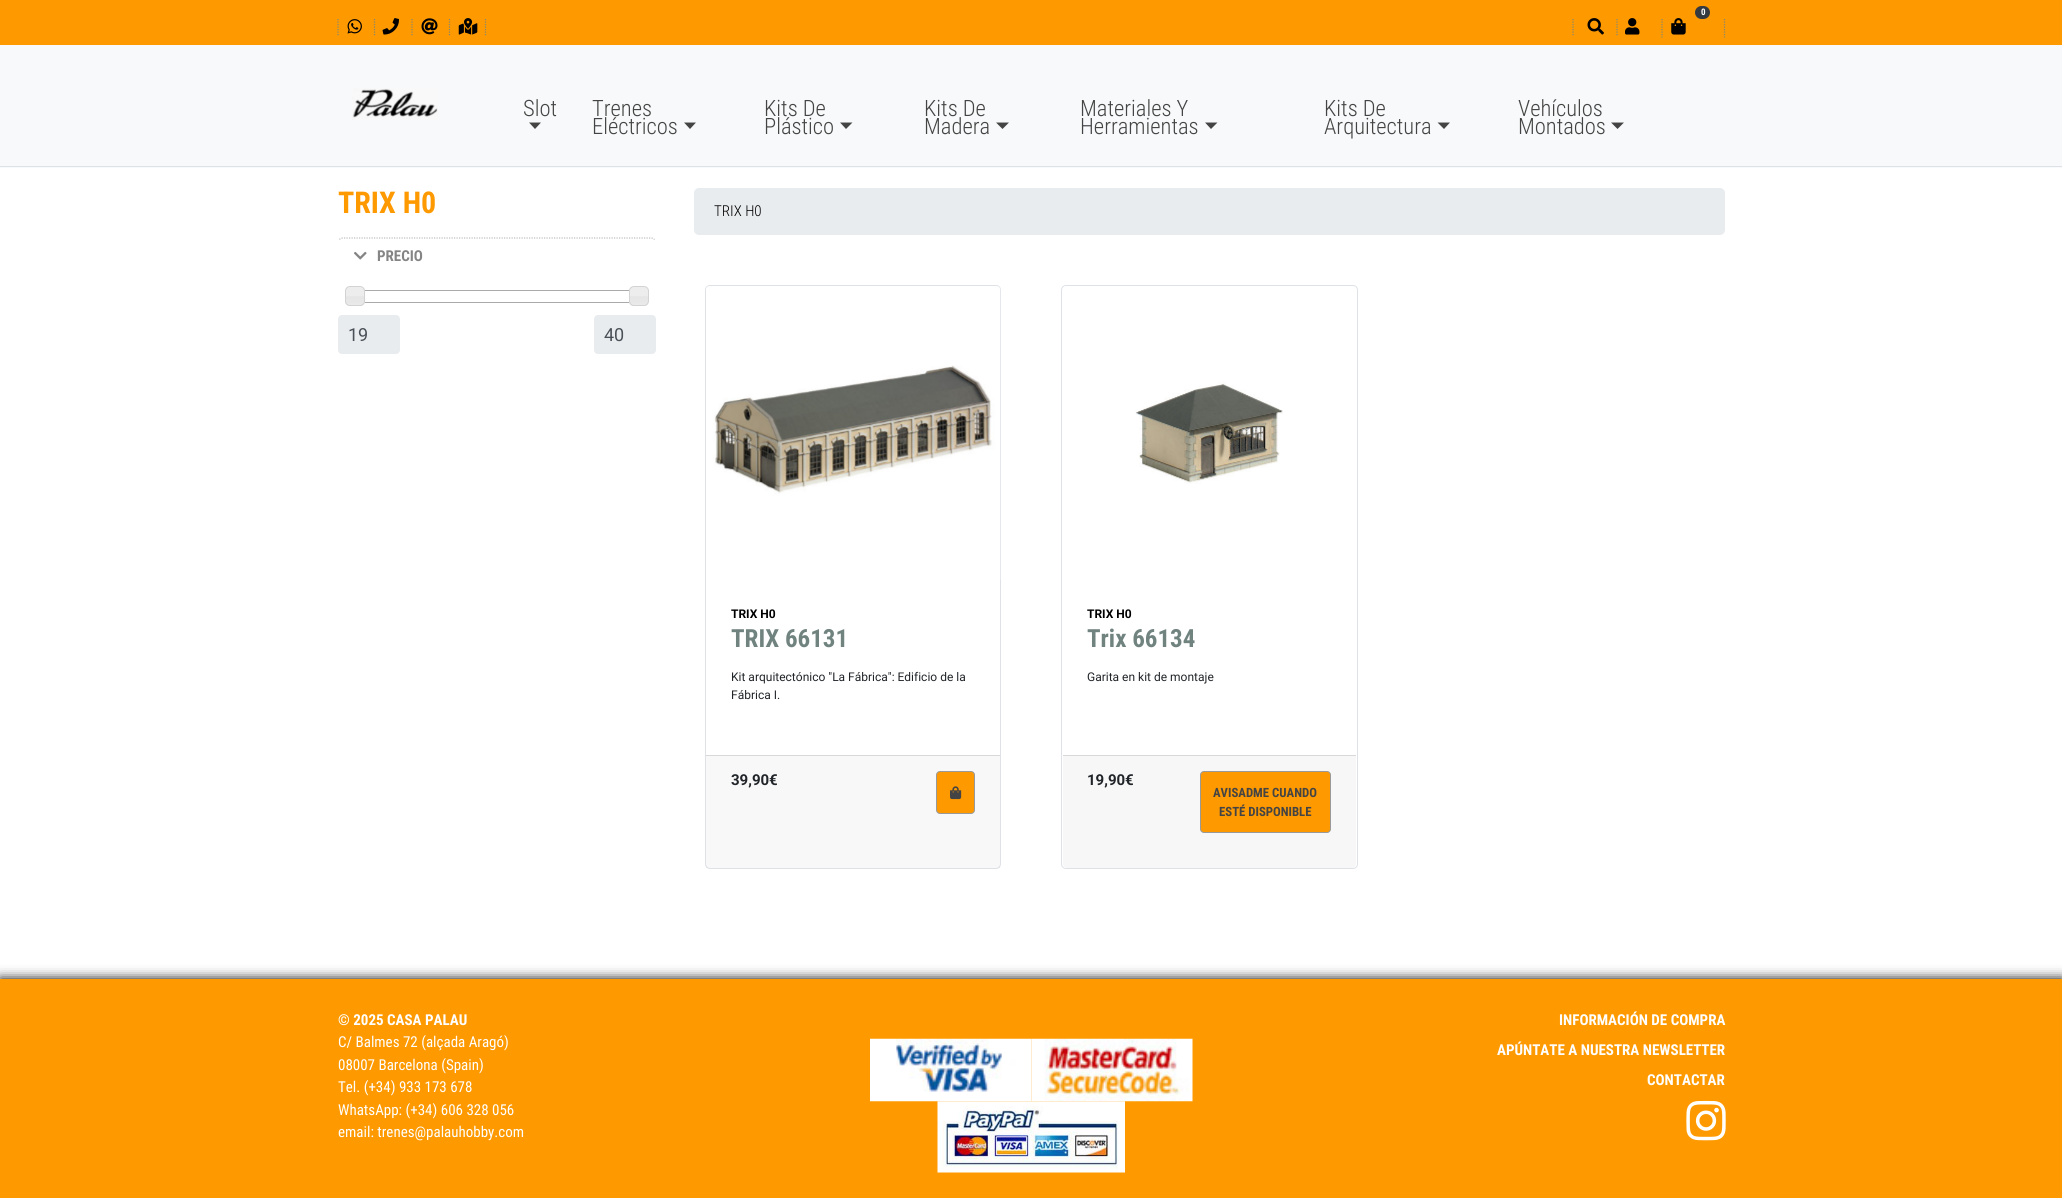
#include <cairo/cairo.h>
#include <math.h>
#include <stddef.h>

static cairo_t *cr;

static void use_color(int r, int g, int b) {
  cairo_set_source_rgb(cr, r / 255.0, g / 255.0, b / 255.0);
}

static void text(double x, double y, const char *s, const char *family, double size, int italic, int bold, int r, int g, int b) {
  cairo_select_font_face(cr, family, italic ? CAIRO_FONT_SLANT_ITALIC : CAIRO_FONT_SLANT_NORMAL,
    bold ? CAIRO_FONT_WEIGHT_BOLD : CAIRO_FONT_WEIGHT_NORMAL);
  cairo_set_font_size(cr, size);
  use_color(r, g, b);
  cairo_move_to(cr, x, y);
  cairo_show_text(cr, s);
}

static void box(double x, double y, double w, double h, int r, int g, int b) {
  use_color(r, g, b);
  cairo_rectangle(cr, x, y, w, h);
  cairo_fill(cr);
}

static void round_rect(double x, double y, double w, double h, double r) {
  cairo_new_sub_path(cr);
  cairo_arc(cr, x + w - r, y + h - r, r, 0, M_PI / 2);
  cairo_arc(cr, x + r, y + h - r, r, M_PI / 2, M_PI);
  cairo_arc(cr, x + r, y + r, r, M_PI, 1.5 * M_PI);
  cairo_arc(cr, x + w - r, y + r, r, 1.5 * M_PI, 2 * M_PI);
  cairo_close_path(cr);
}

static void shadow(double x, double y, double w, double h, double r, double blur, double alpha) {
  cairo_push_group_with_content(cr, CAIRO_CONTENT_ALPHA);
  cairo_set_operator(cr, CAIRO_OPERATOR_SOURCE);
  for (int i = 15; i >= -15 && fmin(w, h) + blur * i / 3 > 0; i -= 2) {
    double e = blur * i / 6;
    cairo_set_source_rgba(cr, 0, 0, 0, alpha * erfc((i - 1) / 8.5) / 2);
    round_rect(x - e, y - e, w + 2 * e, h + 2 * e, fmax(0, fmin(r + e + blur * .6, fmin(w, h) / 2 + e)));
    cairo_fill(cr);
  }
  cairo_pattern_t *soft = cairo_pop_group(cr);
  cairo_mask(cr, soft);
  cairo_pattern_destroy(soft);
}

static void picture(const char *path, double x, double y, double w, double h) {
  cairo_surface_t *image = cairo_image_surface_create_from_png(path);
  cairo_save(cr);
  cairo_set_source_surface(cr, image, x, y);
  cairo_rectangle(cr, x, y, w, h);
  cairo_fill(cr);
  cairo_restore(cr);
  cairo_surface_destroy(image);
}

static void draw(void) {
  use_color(255, 255, 255);
  cairo_paint(cr);
  box(0, 0, 2062, 45, 254, 153, 0);
  cairo_new_path(cr);
  cairo_move_to(cr, 1724.5, 19);
  cairo_line_to(cr, 1724.5, 37.5);
  use_color(134, 137, 113);
  cairo_set_line_width(cr, 1.2);
  cairo_set_dash(cr, (double[]){1.25, 1.25}, 2, 0);
  cairo_stroke(cr);
  cairo_new_path(cr);
  cairo_move_to(cr, 1662, 19);
  cairo_line_to(cr, 1662, 37.5);
  cairo_stroke(cr);
  use_color(52, 58, 64);
  round_rect(1695, 6, 15, 13, 6.5);
  cairo_fill(cr);
  picture("img_01.png", 1671, 18, 15, 17);
  cairo_new_path(cr);
  cairo_move_to(cr, 1573, 19);
  cairo_line_to(cr, 1573, 36);
  use_color(134, 137, 113);
  cairo_stroke(cr);
  picture("img_02.png", 1587, 18, 17, 17);
  cairo_new_path(cr);
  cairo_move_to(cr, 1617, 19);
  cairo_line_to(cr, 1617, 36);
  cairo_stroke(cr);
  picture("img_03.png", 1625, 18, 15, 17);
  cairo_new_path(cr);
  cairo_move_to(cr, 338, 19);
  cairo_line_to(cr, 338, 36);
  cairo_stroke(cr);
  picture("img_04.png", 347, 19, 15, 15);
  cairo_new_path(cr);
  cairo_move_to(cr, 374.5, 19);
  cairo_line_to(cr, 374.5, 36);
  cairo_stroke(cr);
  picture("img_05.png", 382, 18, 17, 17);
  cairo_new_path(cr);
  cairo_move_to(cr, 412, 19);
  cairo_line_to(cr, 412, 36);
  cairo_stroke(cr);
  picture("img_06.png", 421, 18, 17, 17);
  cairo_new_path(cr);
  cairo_move_to(cr, 485.5, 19);
  cairo_line_to(cr, 485.5, 36);
  cairo_move_to(cr, 449.5, 19);
  cairo_line_to(cr, 449.5, 36);
  cairo_stroke(cr);
  picture("img_07.png", 458, 18, 20, 17);
  box(0, 45, 2062, 123, 248, 249, 250);
  box(0, 166, 2062, 1, 222, 226, 230);
  picture("img_08.png", 352, 88, 86, 32);
  use_color(68, 68, 68);
  cairo_new_path(cr);
  cairo_move_to(cr, 529, 122.5);
  cairo_line_to(cr, 541, 122.5);
  cairo_line_to(cr, 535, 129);
  cairo_close_path(cr);
  cairo_fill(cr);
  cairo_new_path(cr);
  cairo_move_to(cr, 684, 122.5);
  cairo_line_to(cr, 696, 122.5);
  cairo_line_to(cr, 690, 129);
  cairo_close_path(cr);
  cairo_fill(cr);
  cairo_new_path(cr);
  cairo_move_to(cr, 840, 122.5);
  cairo_line_to(cr, 852.5, 122.5);
  cairo_line_to(cr, 846, 129);
  cairo_close_path(cr);
  cairo_fill(cr);
  cairo_new_path(cr);
  cairo_move_to(cr, 996, 122.5);
  cairo_line_to(cr, 1009, 122.5);
  cairo_line_to(cr, 1002.5, 129);
  cairo_close_path(cr);
  cairo_fill(cr);
  cairo_new_path(cr);
  cairo_move_to(cr, 1205, 122.5);
  cairo_line_to(cr, 1217.5, 122.5);
  cairo_line_to(cr, 1211, 129);
  cairo_close_path(cr);
  cairo_fill(cr);
  cairo_new_path(cr);
  cairo_move_to(cr, 1437.5, 122.5);
  cairo_line_to(cr, 1450, 122.5);
  cairo_line_to(cr, 1444, 129);
  cairo_close_path(cr);
  cairo_fill(cr);
  cairo_new_path(cr);
  cairo_move_to(cr, 1611, 122.5);
  cairo_line_to(cr, 1624, 122.5);
  cairo_line_to(cr, 1617.5, 129);
  cairo_close_path(cr);
  cairo_fill(cr);
  cairo_new_path(cr);
  cairo_move_to(cr, 339.5, 239.5);
  cairo_curve_to(cr, 340, 238.5, 341.5, 238, 342.5, 238);
  cairo_line_to(cr, 651, 238);
  cairo_curve_to(cr, 652.5, 238, 653.5, 238.5, 654.5, 239.5);
  use_color(189, 189, 189);
  cairo_stroke(cr);
  picture("img_09.png", 354, 251, 13, 9);
  cairo_rectangle(cr, 354.5, 290.5, 285, 12);
  use_color(170, 170, 170);
  cairo_set_line_width(cr, 1);
  cairo_set_dash(cr, NULL, 0, 0);
  cairo_stroke(cr);
  picture("img_10.png", 345, 287, 20, 19);
  round_rect(345.5, 286.5, 19, 19, 4.5);
  use_color(211, 211, 211);
  cairo_stroke(cr);
  picture("img_11.png", 629, 287, 19, 19);
  round_rect(629.5, 286.5, 19, 19, 4.5);
  cairo_stroke(cr);
  use_color(233, 236, 239);
  round_rect(338, 315, 62, 39, 4);
  cairo_fill(cr);
  round_rect(594, 315, 62, 39, 4);
  cairo_fill(cr);
  round_rect(694, 188, 1031, 47, 5);
  cairo_fill(cr);
  round_rect(705.5, 285.5, 295, 583, 4.5);
  use_color(222, 226, 230);
  cairo_stroke(cr);
  picture("img_12.png", 706, 286, 295, 294);
  cairo_set_source_rgba(cr, 0, 0, 0, 0.03);
  cairo_rectangle(cr, 706, 756, 294, 112);
  cairo_fill(cr);
  box(706, 755, 294, 1, 216, 216, 216);
  use_color(254, 153, 0);
  round_rect(936.5, 771.5, 38, 42, 3.5);
  cairo_fill_preserve(cr);
  use_color(153, 153, 153);
  cairo_stroke(cr);
  picture("img_13.png", 950, 786, 12, 14);
  round_rect(1061.5, 285.5, 296, 583, 4.5);
  use_color(222, 226, 230);
  cairo_stroke(cr);
  picture("img_14.png", 1064, 286, 219, 198);
  use_color(247, 247, 247);
  cairo_new_path(cr);
  cairo_move_to(cr, 1063, 755);
  cairo_line_to(cr, 1356, 755);
  cairo_line_to(cr, 1356, 864);
  cairo_curve_to(cr, 1356, 866, 1354, 868, 1352, 868);
  cairo_line_to(cr, 1067, 868);
  cairo_curve_to(cr, 1065, 868, 1063, 866, 1063, 864);
  cairo_close_path(cr);
  cairo_fill(cr);
  box(1063, 755, 293, 1, 216, 216, 216);
  use_color(254, 153, 0);
  round_rect(1200.5, 771.5, 130, 61, 3.5);
  cairo_fill_preserve(cr);
  use_color(153, 153, 153);
  cairo_stroke(cr);
  use_color(0, 0, 0);
  shadow(0, 979, 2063, 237, 0, 6, 1);
  box(0, 979, 2062, 219, 254, 153, 0);
  picture("img_15.png", 870, 1038, 162, 64);
  picture("img_16.png", 1031, 1038, 162, 64);
  picture("img_17.png", 937, 1101, 188, 72);
  picture("img_18.png", 1686, 1100, 40, 41);
  text(1701, 15, "0", "Roboto Condensed", 9, 0, 1, 255, 255, 255);
  text(523, 116, "Slot", "Roboto Condensed Light", 22.5, 0, 0, 68, 68, 68);
  text(592, 116, "Trenes", "Roboto Condensed Light", 22.5, 0, 0, 68, 68, 68);
  text(592, 134, "Eléctricos", "Roboto Condensed Light", 22.5, 0, 0, 68, 68, 68);
  text(764, 116, "Kits De", "Roboto Condensed Light", 22.5, 0, 0, 68, 68, 68);
  text(764, 134, "Plástico", "Roboto Condensed Light", 22.5, 0, 0, 68, 68, 68);
  text(924, 116, "Kits De", "Roboto Condensed Light", 22.5, 0, 0, 68, 68, 68);
  text(924, 134, "Madera", "Roboto Condensed Light", 22.5, 0, 0, 68, 68, 68);
  text(1080, 116, "Materiales Y", "Roboto Condensed Light", 22.5, 0, 0, 68, 68, 68);
  text(1080, 134, "Herramientas", "Roboto Condensed Light", 22.5, 0, 0, 68, 68, 68);
  text(1324, 116, "Kits De", "Roboto Condensed Light", 22.5, 0, 0, 68, 68, 68);
  text(1324, 134, "Arquitectura", "Roboto Condensed Light", 22.5, 0, 0, 68, 68, 68);
  text(1518, 116, "Vehículos", "Roboto Condensed Light", 22.5, 0, 0, 68, 68, 68);
  text(1518, 134, "Montados", "Roboto Condensed Light", 22.5, 0, 0, 68, 68, 68);
  text(338, 213, "TRIX H0", "Roboto Condensed", 30, 0, 1, 254, 153, 0);
  text(377, 261, "PRECIO", "Roboto Condensed", 15, 0, 1, 133, 133, 133);
  text(348, 341, "19", "Roboto", 18, 0, 0, 73, 80, 87);
  text(604, 341, "40", "Roboto", 18, 0, 0, 73, 80, 87);
  text(714, 216, "TRIX H0", "Roboto Condensed Light", 15, 0, 0, 0, 0, 0);
  text(731, 618, "TRIX H0", "Roboto", 12, 0, 1, 0, 0, 0);
  text(731, 647, "TRIX 66131", "Roboto Condensed", 25, 0, 1, 112, 131, 127);
  text(731, 681, "Kit arquitectónico \"La Fábrica\": Edificio de la", "Roboto", 12, 0, 0, 33, 37, 41);
  text(731, 699, "Fábrica I.", "Roboto", 12, 0, 0, 33, 37, 41);
  text(731, 785, "39,90€", "Roboto", 15, 0, 1, 33, 37, 41);
  text(1087, 618, "TRIX H0", "Roboto", 12, 0, 1, 0, 0, 0);
  text(1087, 647, "Trix 66134", "Roboto Condensed", 25, 0, 1, 112, 131, 127);
  text(1087, 681, "Garita en kit de montaje", "Roboto", 12, 0, 0, 33, 37, 41);
  text(1087, 785, "19,90€", "Roboto", 15, 0, 1, 33, 37, 41);
  text(1213, 797, "AVISADME CUANDO", "Roboto Condensed", 12.75, 0, 1, 68, 68, 68);
  text(1219, 816, "ESTÉ DISPONIBLE", "Roboto Condensed", 12.75, 0, 1, 68, 68, 68);
  text(338, 1025, "© 2025 CASA PALAU", "Roboto Condensed", 15, 0, 1, 255, 255, 255);
  text(338, 1047, "C/ Balmes 72 (alçada Aragó)", "Roboto Condensed", 15, 0, 0, 255, 255, 255);
  text(338, 1070, "08007 Barcelona (Spain)", "Roboto Condensed", 15, 0, 0, 255, 255, 255);
  text(338, 1092, "Tel. (+34) 933 173 678", "Roboto Condensed", 15, 0, 0, 255, 255, 255);
  text(338, 1115, "WhatsApp: (+34) 606 328 056", "Roboto Condensed", 15, 0, 0, 255, 255, 255);
  text(338, 1137, "email: trenes@palauhobby.com", "Roboto Condensed", 15, 0, 0, 255, 255, 255);
  text(1559, 1025, "INFORMACIÓN DE COMPRA", "Roboto Condensed", 15, 0, 1, 255, 255, 255);
  text(1497, 1055, "APÚNTATE A NUESTRA NEWSLETTER", "Roboto Condensed", 15, 0, 1, 255, 255, 255);
  text(1647, 1085, "CONTACTAR", "Roboto Condensed", 15, 0, 1, 255, 255, 255);
}

int main(void) {
  cairo_surface_t *surface = cairo_image_surface_create(CAIRO_FORMAT_RGB24, 2062, 1198);
  cr = cairo_create(surface);
  cairo_font_options_t *options = cairo_font_options_create();
  cairo_font_options_set_hint_metrics(options, CAIRO_HINT_METRICS_OFF);
  cairo_font_options_set_hint_style(options, CAIRO_HINT_STYLE_NONE);
  cairo_set_font_options(cr, options);
  cairo_set_miter_limit(cr, 4);
  draw();
  cairo_surface_write_to_png(surface, "out.png");
  cairo_font_options_destroy(options);
  cairo_destroy(cr);
  cairo_surface_destroy(surface);
  return 0;
}
